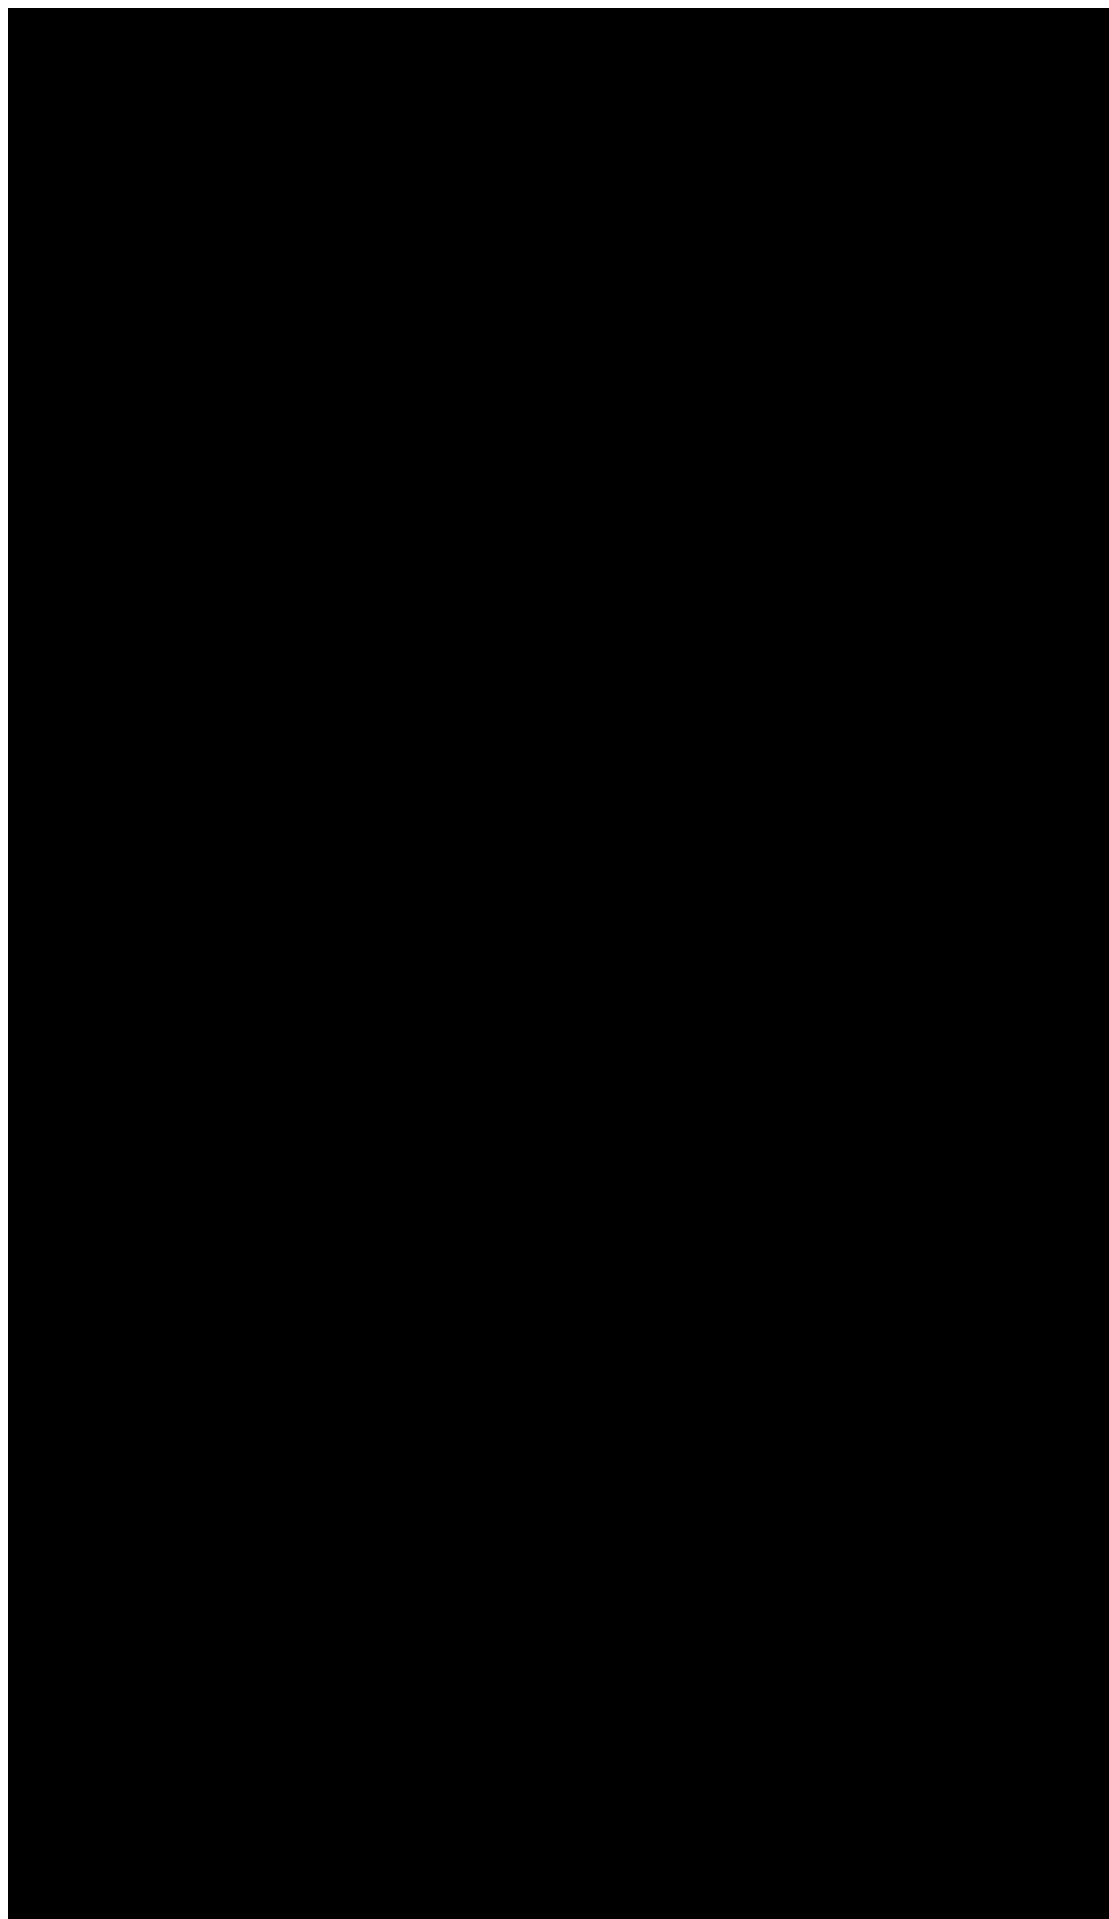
#include <cairo/cairo.h>
#include <math.h>
#include <stddef.h>

static cairo_t *cr;

static void use_color(int r, int g, int b) {
  cairo_set_source_rgb(cr, r / 255.0, g / 255.0, b / 255.0);
}

static void box(double x, double y, double w, double h, int r, int g, int b) {
  use_color(r, g, b);
  cairo_rectangle(cr, x, y, w, h);
  cairo_fill(cr);
}

static void draw(void) {
  use_color(255, 255, 255);
  cairo_paint(cr);
  box(8, 8, 1101, 1911, 0, 0, 0);
}

int main(void) {
  cairo_surface_t *surface = cairo_image_surface_create(CAIRO_FORMAT_RGB24, 1109, 1919);
  cr = cairo_create(surface);
  cairo_font_options_t *options = cairo_font_options_create();
  cairo_font_options_set_hint_metrics(options, CAIRO_HINT_METRICS_OFF);
  cairo_font_options_set_hint_style(options, CAIRO_HINT_STYLE_NONE);
  cairo_set_font_options(cr, options);
  cairo_set_miter_limit(cr, 4);
  draw();
  cairo_surface_write_to_png(surface, "out.png");
  cairo_font_options_destroy(options);
  cairo_destroy(cr);
  cairo_surface_destroy(surface);
  return 0;
}
